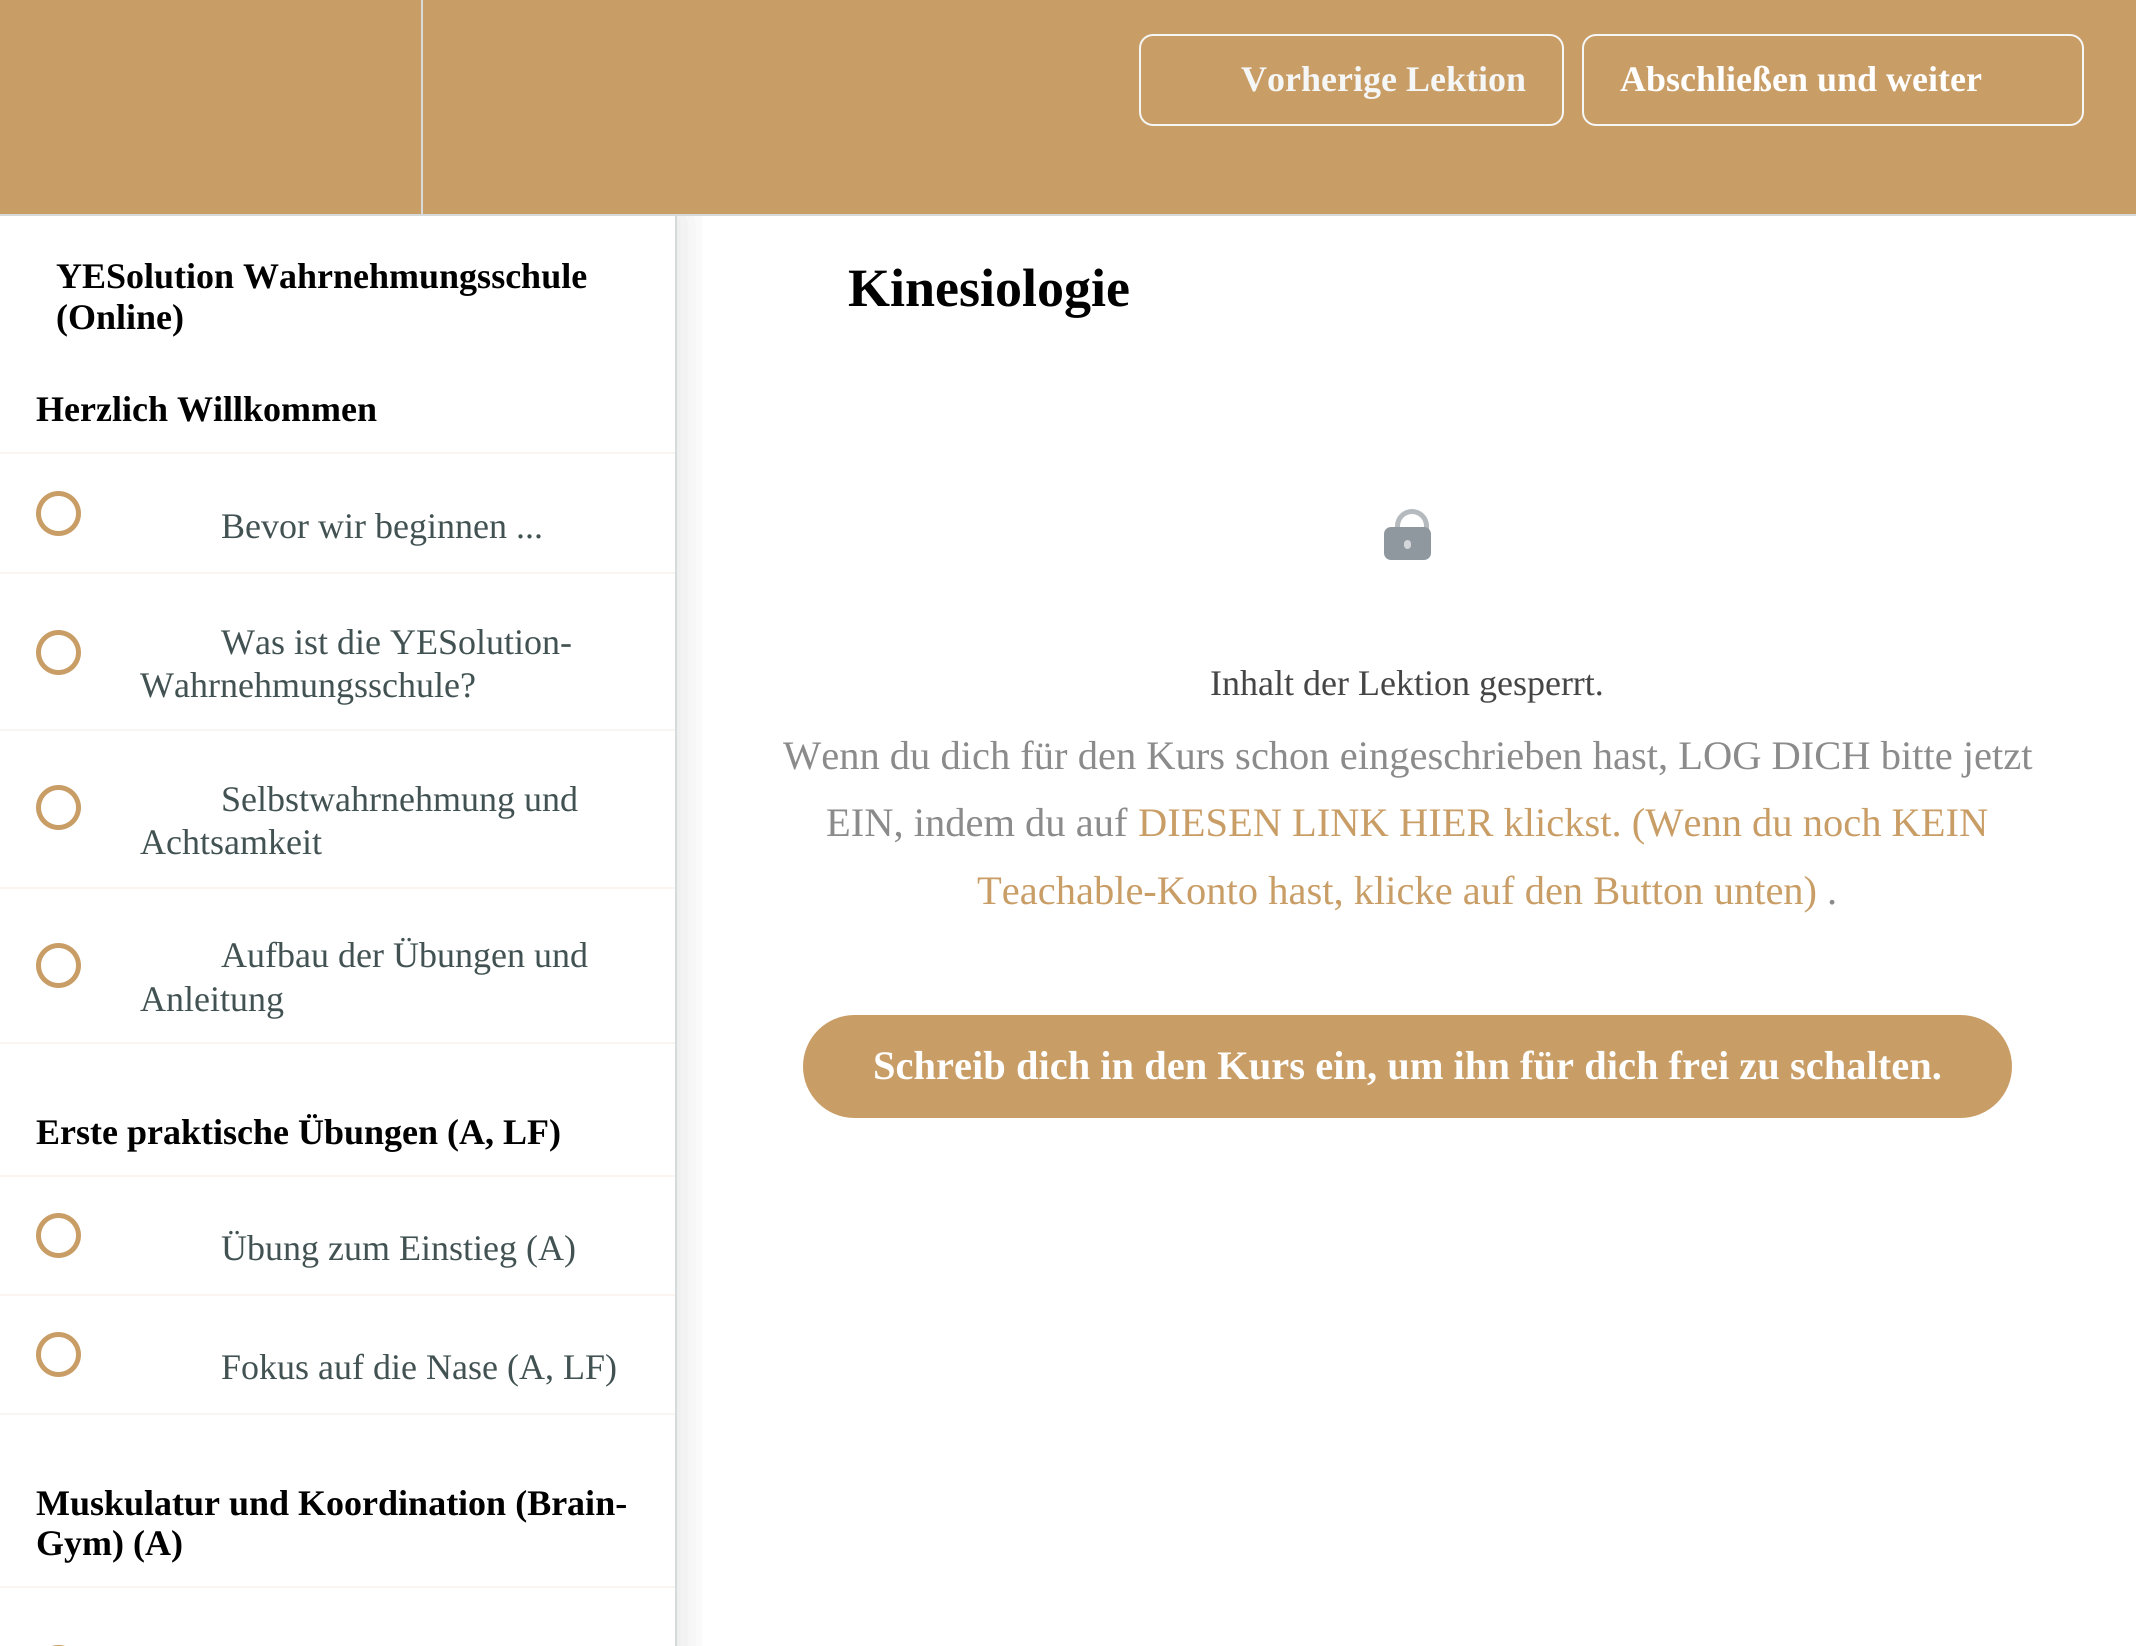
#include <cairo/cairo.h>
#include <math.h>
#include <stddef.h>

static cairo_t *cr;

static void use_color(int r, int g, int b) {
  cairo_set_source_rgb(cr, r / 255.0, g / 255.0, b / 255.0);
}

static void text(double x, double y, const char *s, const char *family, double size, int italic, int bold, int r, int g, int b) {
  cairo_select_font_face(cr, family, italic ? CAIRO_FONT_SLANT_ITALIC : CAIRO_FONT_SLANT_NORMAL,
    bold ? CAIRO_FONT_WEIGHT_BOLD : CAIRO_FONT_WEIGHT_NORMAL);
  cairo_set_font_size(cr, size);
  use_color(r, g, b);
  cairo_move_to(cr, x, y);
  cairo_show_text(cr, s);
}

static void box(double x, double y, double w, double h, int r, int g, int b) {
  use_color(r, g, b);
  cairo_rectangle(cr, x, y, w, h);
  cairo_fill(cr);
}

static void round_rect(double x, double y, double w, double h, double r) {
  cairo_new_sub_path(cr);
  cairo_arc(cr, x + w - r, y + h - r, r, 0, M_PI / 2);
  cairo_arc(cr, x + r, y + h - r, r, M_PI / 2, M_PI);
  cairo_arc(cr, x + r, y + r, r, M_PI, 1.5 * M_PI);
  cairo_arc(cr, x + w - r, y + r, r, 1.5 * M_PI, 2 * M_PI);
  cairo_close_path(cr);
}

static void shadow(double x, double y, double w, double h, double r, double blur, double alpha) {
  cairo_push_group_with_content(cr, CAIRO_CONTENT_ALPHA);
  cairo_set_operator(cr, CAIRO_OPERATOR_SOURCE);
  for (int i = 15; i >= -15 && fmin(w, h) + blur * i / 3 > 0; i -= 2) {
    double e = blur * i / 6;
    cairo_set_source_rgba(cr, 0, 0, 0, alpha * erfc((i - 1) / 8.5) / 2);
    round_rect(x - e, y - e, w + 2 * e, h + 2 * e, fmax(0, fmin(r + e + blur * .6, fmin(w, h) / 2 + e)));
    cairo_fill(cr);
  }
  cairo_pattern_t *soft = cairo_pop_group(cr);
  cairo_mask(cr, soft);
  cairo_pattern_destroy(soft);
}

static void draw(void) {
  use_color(255, 255, 255);
  cairo_paint(cr);
  cairo_save(cr);
  cairo_rectangle(cr, 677, 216, 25, 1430);
  cairo_clip(cr);
  use_color(32, 39, 45);
  shadow(0, 214, 677, 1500, 0, 22.5, 0.15);
  cairo_restore(cr);
  box(0, 0, 2136, 214, 201, 157, 102);
  box(0, 214, 2136, 2, 215, 218, 219);
  box(421, 0, 2, 214, 215, 218, 219);
  round_rect(1140, 35, 423, 90, 13);
  use_color(245, 246, 246);
  cairo_stroke(cr);
  round_rect(1583, 35, 500, 90, 13);
  cairo_stroke(cr);
  box(675, 216, 2, 1430, 215, 218, 219);
  box(0, 452, 675, 2, 250, 245, 240);
  box(0, 572, 675, 2, 250, 245, 240);
  cairo_arc(cr, 58.5, 513.5, 20, 0, 2 * M_PI);
  use_color(201, 157, 102);
  cairo_set_line_width(cr, 5);
  cairo_stroke(cr);
  box(0, 729, 675, 2, 250, 245, 240);
  cairo_arc(cr, 58.5, 652.5, 20, 0, 2 * M_PI);
  use_color(201, 157, 102);
  cairo_stroke(cr);
  box(0, 887, 675, 2, 250, 245, 240);
  cairo_arc(cr, 58.5, 807.5, 20, 0, 2 * M_PI);
  use_color(201, 157, 102);
  cairo_stroke(cr);
  box(0, 1042, 675, 2, 250, 245, 240);
  cairo_arc(cr, 58.5, 965.5, 20, 0, 2 * M_PI);
  use_color(201, 157, 102);
  cairo_stroke(cr);
  box(0, 1175, 675, 2, 250, 245, 240);
  box(0, 1294, 675, 2, 250, 245, 240);
  cairo_arc(cr, 58.5, 1235.5, 20, 0, 2 * M_PI);
  use_color(201, 157, 102);
  cairo_stroke(cr);
  box(0, 1413, 675, 2, 250, 245, 240);
  cairo_arc(cr, 58.5, 1354.5, 20, 0, 2 * M_PI);
  use_color(201, 157, 102);
  cairo_stroke(cr);
  box(0, 1586, 675, 2, 250, 245, 240);
  round_rect(38.5, 1647.5, 40, 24, 20);
  use_color(201, 157, 102);
  cairo_stroke(cr);
  round_rect(1397.5, 511.5, 29, 44, 14.5);
  use_color(181, 186, 191);
  cairo_stroke(cr);
  use_color(143, 152, 159);
  round_rect(1384, 527, 47, 33, 7);
  cairo_fill(cr);
  use_color(211, 215, 220);
  round_rect(1404, 540, 7, 9, 3.5);
  cairo_fill(cr);
  use_color(201, 157, 102);
  round_rect(804, 1016, 1207, 101, 50.5);
  cairo_fill_preserve(cr);
  cairo_set_line_width(cr, 2);
  cairo_stroke(cr);
  text(1241, 91, "Vorherige Lektion", "Liberation Serif", 36, 0, 1, 245, 246, 246);
  text(1620, 91, "Abschließen und weiter", "Liberation Serif", 36, 0, 1, 255, 255, 255);
  text(56, 288, "YESolution Wahrnehmungsschule", "Liberation Serif", 36, 0, 1, 0, 0, 0);
  text(56, 329, "(Online)", "Liberation Serif", 36, 0, 1, 0, 0, 0);
  text(36, 421, "Herzlich Willkommen", "Liberation Serif", 36, 0, 1, 0, 0, 0);
  text(221, 538, "Bevor wir beginnen ...", "Liberation Serif", 36, 0, 0, 66, 82, 82);
  text(221, 654, "Was ist die YESolution-", "Liberation Serif", 36, 0, 0, 66, 82, 82);
  text(140, 697, "Wahrnehmungsschule?", "Liberation Serif", 36, 0, 0, 66, 82, 82);
  text(221, 811, "Selbstwahrnehmung und", "Liberation Serif", 36, 0, 0, 66, 82, 82);
  text(140, 854, "Achtsamkeit", "Liberation Serif", 36, 0, 0, 66, 82, 82);
  text(221, 967, "Aufbau der Übungen und", "Liberation Serif", 36, 0, 0, 66, 82, 82);
  text(140, 1011, "Anleitung", "Liberation Serif", 36, 0, 0, 66, 82, 82);
  text(36, 1144, "Erste praktische Übungen (A, LF)", "Liberation Serif", 36, 0, 1, 0, 0, 0);
  text(221, 1260, "Übung zum Einstieg (A)", "Liberation Serif", 36, 0, 0, 66, 82, 82);
  text(221, 1379, "Fokus auf die Nase (A, LF)", "Liberation Serif", 36, 0, 0, 66, 82, 82);
  text(36, 1515, "Muskulatur und Koordination (Brain-", "Liberation Serif", 36, 0, 1, 0, 0, 0);
  text(36, 1555, "Gym) (A)", "Liberation Serif", 36, 0, 1, 0, 0, 0);
  text(848, 306, "Kinesiologie", "Liberation Serif", 54, 0, 1, 0, 0, 0);
  text(1210, 695, "Inhalt der Lektion gesperrt.", "Liberation Serif", 36, 0, 0, 69, 69, 69);
  text(783, 769, "Wenn du dich für den Kurs schon eingeschrieben hast, LOG DICH bitte jetzt", "Liberation Serif", 40.5, 0, 0, 139, 139, 139);
  text(826, 836, "EIN, indem du auf", "Liberation Serif", 40.5, 0, 0, 139, 139, 139);
  text(1138, 836, "DIESEN LINK HIER klickst. (Wenn du noch KEIN", "Liberation Serif", 40.5, 0, 0, 201, 157, 102);
  text(977, 904, "Teachable-Konto hast, klicke auf den Button unten)", "Liberation Serif", 40.5, 0, 0, 201, 157, 102);
  text(1827, 904, ".", "Liberation Serif", 40.5, 0, 0, 139, 139, 139);
  text(873, 1079, "Schreib dich in den Kurs ein, um ihn für dich frei zu schalten.", "Liberation Serif", 40.5, 0, 1, 255, 255, 255);
}

int main(void) {
  cairo_surface_t *surface = cairo_image_surface_create(CAIRO_FORMAT_RGB24, 2136, 1646);
  cr = cairo_create(surface);
  cairo_font_options_t *options = cairo_font_options_create();
  cairo_font_options_set_hint_metrics(options, CAIRO_HINT_METRICS_OFF);
  cairo_font_options_set_hint_style(options, CAIRO_HINT_STYLE_NONE);
  cairo_set_font_options(cr, options);
  cairo_set_miter_limit(cr, 4);
  draw();
  cairo_surface_write_to_png(surface, "out.png");
  cairo_font_options_destroy(options);
  cairo_destroy(cr);
  cairo_surface_destroy(surface);
  return 0;
}
